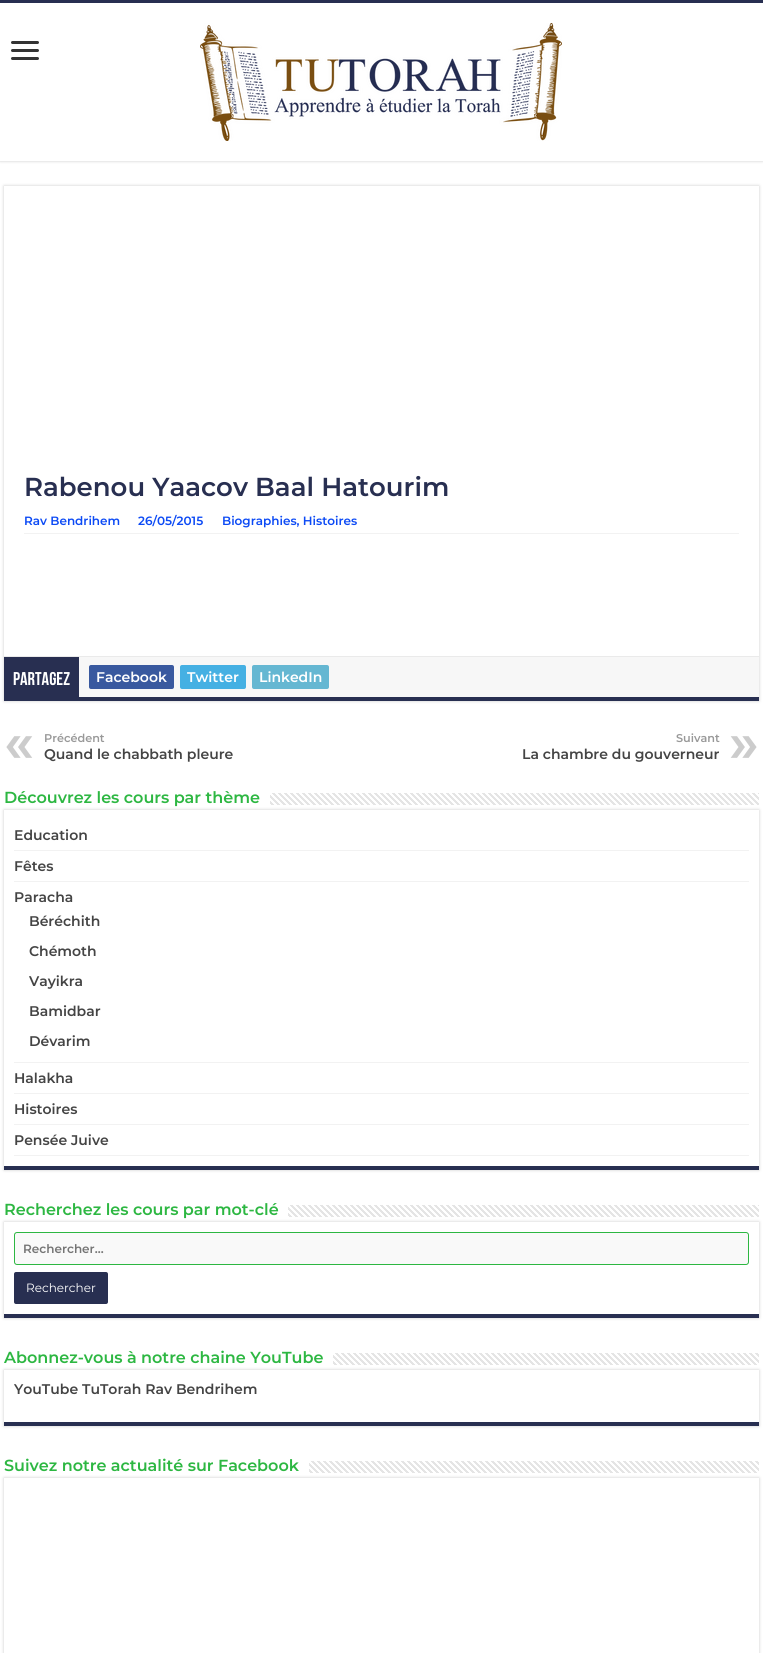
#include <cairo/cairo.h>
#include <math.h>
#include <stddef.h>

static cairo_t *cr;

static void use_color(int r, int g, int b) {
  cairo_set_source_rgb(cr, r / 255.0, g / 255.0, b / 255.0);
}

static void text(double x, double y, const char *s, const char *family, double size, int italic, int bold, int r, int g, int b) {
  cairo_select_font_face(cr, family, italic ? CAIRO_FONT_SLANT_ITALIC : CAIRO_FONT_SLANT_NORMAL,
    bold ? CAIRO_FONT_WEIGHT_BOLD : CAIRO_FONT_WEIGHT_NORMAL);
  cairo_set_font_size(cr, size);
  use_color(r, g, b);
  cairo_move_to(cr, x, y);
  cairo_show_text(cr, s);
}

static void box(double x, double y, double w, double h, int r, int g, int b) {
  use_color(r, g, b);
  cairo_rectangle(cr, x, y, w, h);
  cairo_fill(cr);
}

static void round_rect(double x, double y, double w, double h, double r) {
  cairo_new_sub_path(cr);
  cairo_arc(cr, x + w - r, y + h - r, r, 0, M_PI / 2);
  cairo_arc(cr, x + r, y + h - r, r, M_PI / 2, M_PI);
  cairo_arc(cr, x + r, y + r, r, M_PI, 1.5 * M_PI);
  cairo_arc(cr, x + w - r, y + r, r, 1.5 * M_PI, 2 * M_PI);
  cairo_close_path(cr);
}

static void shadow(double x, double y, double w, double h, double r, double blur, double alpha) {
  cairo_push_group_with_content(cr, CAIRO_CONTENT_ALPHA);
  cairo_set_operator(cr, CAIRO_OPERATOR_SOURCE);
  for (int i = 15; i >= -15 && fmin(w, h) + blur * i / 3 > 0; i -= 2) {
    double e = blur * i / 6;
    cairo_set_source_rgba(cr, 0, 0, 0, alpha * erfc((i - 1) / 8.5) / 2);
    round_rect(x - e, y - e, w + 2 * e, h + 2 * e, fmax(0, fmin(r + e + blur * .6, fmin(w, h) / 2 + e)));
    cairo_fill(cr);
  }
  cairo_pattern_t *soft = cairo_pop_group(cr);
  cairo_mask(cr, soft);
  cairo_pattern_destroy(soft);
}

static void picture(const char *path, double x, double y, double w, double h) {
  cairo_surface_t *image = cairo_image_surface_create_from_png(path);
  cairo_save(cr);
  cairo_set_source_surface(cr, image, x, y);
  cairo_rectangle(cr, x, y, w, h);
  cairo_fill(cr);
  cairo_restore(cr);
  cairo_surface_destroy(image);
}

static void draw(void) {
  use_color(255, 255, 255);
  cairo_paint(cr);
  cairo_save(cr);
  cairo_rectangle(cr, 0, 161, 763, 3);
  cairo_clip(cr);
  use_color(202, 202, 202);
  shadow(0, 0, 763, 161, 0, 1.5, 1);
  cairo_restore(cr);
  box(0, 0, 763, 3, 40, 47, 81);
  use_color(51, 51, 51);
  round_rect(11, 41, 28, 3, 1.5);
  cairo_fill(cr);
  round_rect(11, 49, 28, 3, 1.5);
  cairo_fill(cr);
  round_rect(11, 57, 28, 3, 1.5);
  cairo_fill(cr);
  picture("img_01.png", 200, 23, 362, 118);
  cairo_save(cr);
  cairo_set_fill_rule(cr, CAIRO_FILL_RULE_EVEN_ODD);
  cairo_new_path(cr);
  cairo_move_to(cr, 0, 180);
  cairo_line_to(cr, 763, 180);
  cairo_line_to(cr, 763, 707);
  cairo_line_to(cr, 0, 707);
  cairo_close_path(cr);
  cairo_move_to(cr, 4, 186);
  cairo_line_to(cr, 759, 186);
  cairo_line_to(cr, 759, 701);
  cairo_line_to(cr, 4, 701);
  cairo_close_path(cr);
  cairo_clip(cr);
  use_color(202, 202, 202);
  shadow(4, 186, 755, 515, 0, 1.5, 1);
  cairo_restore(cr);
  box(4, 697, 755, 4, 40, 47, 81);
  box(24, 533, 715, 1, 242, 242, 242);
  box(79, 657, 680, 40, 247, 247, 247);
  box(4, 656, 755, 1, 234, 234, 234);
  box(4, 657, 75, 40, 40, 47, 81);
  use_color(57, 89, 159);
  round_rect(89, 665, 85, 24, 2);
  cairo_fill(cr);
  use_color(69, 176, 227);
  round_rect(180, 665, 66, 24, 2);
  cairo_fill(cr);
  use_color(101, 183, 210);
  round_rect(252, 665, 77, 24, 2);
  cairo_fill(cr);
  cairo_save(cr);
  cairo_set_fill_rule(cr, CAIRO_FILL_RULE_EVEN_ODD);
  cairo_new_path(cr);
  cairo_move_to(cr, 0, 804);
  cairo_line_to(cr, 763, 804);
  cairo_line_to(cr, 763, 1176);
  cairo_line_to(cr, 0, 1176);
  cairo_close_path(cr);
  cairo_move_to(cr, 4, 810);
  cairo_line_to(cr, 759, 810);
  cairo_line_to(cr, 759, 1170);
  cairo_line_to(cr, 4, 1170);
  cairo_close_path(cr);
  cairo_clip(cr);
  use_color(202, 202, 202);
  shadow(4, 810, 755, 360, 0, 1.5, 1);
  cairo_restore(cr);
  picture("img_02.png", 270, 793, 489, 12);
  box(4, 1166, 755, 4, 40, 47, 81);
  box(14, 850, 735, 1, 242, 242, 242);
  box(14, 881, 735, 1, 242, 242, 242);
  box(14, 1062, 735, 1, 242, 242, 242);
  box(14, 1093, 735, 1, 242, 242, 242);
  box(14, 1124, 735, 1, 242, 242, 242);
  box(14, 1155, 735, 1, 242, 242, 242);
  cairo_save(cr);
  cairo_set_fill_rule(cr, CAIRO_FILL_RULE_EVEN_ODD);
  cairo_new_path(cr);
  cairo_move_to(cr, 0, 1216);
  cairo_line_to(cr, 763, 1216);
  cairo_line_to(cr, 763, 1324);
  cairo_line_to(cr, 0, 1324);
  cairo_close_path(cr);
  cairo_move_to(cr, 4, 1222);
  cairo_line_to(cr, 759, 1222);
  cairo_line_to(cr, 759, 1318);
  cairo_line_to(cr, 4, 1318);
  cairo_close_path(cr);
  cairo_clip(cr);
  use_color(202, 202, 202);
  shadow(4, 1222, 755, 96, 0, 1.5, 1);
  cairo_restore(cr);
  picture("img_03.png", 288, 1205, 471, 12);
  box(4, 1314, 755, 4, 40, 47, 81);
  use_color(249, 249, 249);
  round_rect(14.5, 1232.5, 734, 32, 2.5);
  cairo_fill_preserve(cr);
  use_color(45, 183, 66);
  cairo_set_line_width(cr, 1);
  cairo_stroke(cr);
  use_color(40, 47, 81);
  round_rect(14, 1272, 94, 32, 2);
  cairo_fill(cr);
  cairo_save(cr);
  cairo_set_fill_rule(cr, CAIRO_FILL_RULE_EVEN_ODD);
  cairo_new_path(cr);
  cairo_move_to(cr, 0, 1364);
  cairo_line_to(cr, 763, 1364);
  cairo_line_to(cr, 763, 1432);
  cairo_line_to(cr, 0, 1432);
  cairo_close_path(cr);
  cairo_move_to(cr, 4, 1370);
  cairo_line_to(cr, 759, 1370);
  cairo_line_to(cr, 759, 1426);
  cairo_line_to(cr, 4, 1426);
  cairo_close_path(cr);
  cairo_clip(cr);
  use_color(202, 202, 202);
  shadow(4, 1370, 755, 56, 0, 1.5, 1);
  cairo_restore(cr);
  picture("img_04.png", 333, 1353, 426, 12);
  box(4, 1422, 755, 4, 40, 47, 81);
  cairo_save(cr);
  cairo_set_fill_rule(cr, CAIRO_FILL_RULE_EVEN_ODD);
  cairo_new_path(cr);
  cairo_move_to(cr, 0, 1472);
  cairo_line_to(cr, 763, 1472);
  cairo_line_to(cr, 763, 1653);
  cairo_line_to(cr, 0, 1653);
  cairo_close_path(cr);
  cairo_move_to(cr, 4, 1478);
  cairo_line_to(cr, 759, 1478);
  cairo_line_to(cr, 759, 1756);
  cairo_line_to(cr, 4, 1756);
  cairo_close_path(cr);
  cairo_clip(cr);
  use_color(202, 202, 202);
  shadow(4, 1478, 755, 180, 0, 1.5, 1);
  cairo_restore(cr);
  picture("img_05.png", 309, 1461, 450, 12);
  text(24, 496, "Rabenou Yaacov Baal Hatourim", "Montserrat SemiBold", 26, 0, 0, 40, 47, 81);
  text(24, 525, "Rav Bendrihem", "Montserrat SemiBold", 12, 0, 0, 12, 74, 245);
  text(138, 525, "26/05/2015", "Montserrat SemiBold", 12, 0, 0, 12, 74, 245);
  text(222, 525, "Biographies, Histoires", "Montserrat SemiBold", 12, 0, 0, 12, 74, 245);
  text(13, 685, "Partagez", "Bebas Neue", 18.5, 0, 1, 255, 255, 255);
  text(96, 682, "Facebook", "Montserrat SemiBold", 14, 0, 0, 255, 255, 255);
  text(187, 682, "Twitter", "Montserrat SemiBold", 14, 0, 0, 255, 255, 255);
  text(259, 682, "LinkedIn", "Montserrat SemiBold", 14, 0, 0, 255, 255, 255);
  text(4, 762, "«", "Montserrat SemiBold", 56, 0, 0, 204, 204, 204);
  text(44, 742, "Précédent", "Montserrat SemiBold", 11.25, 0, 0, 153, 153, 153);
  text(44, 759, "Quand le chabbath pleure", "Montserrat SemiBold", 14, 0, 0, 68, 68, 68);
  text(676, 742, "Suivant", "Montserrat SemiBold", 11.25, 0, 0, 153, 153, 153);
  text(729, 762, "»", "Montserrat SemiBold", 56, 0, 0, 204, 204, 204);
  text(522, 759, "La chambre du gouverneur", "Montserrat SemiBold", 14, 0, 0, 68, 68, 68);
  text(4, 803, "Découvrez les cours par thème", "Montserrat SemiBold", 16, 0, 0, 45, 183, 66);
  text(14, 840, "Education", "Montserrat SemiBold", 14, 0, 0, 68, 68, 68);
  text(14, 871, "Fêtes", "Montserrat SemiBold", 14, 0, 0, 68, 68, 68);
  text(14, 902, "Paracha", "Montserrat SemiBold", 14, 0, 0, 68, 68, 68);
  text(29, 926, "Béréchith", "Montserrat SemiBold", 14, 0, 0, 68, 68, 68);
  text(29, 956, "Chémoth", "Montserrat SemiBold", 14, 0, 0, 68, 68, 68);
  text(29, 986, "Vayikra", "Montserrat SemiBold", 14, 0, 0, 68, 68, 68);
  text(29, 1016, "Bamidbar", "Montserrat SemiBold", 14, 0, 0, 68, 68, 68);
  text(29, 1046, "Dévarim", "Montserrat SemiBold", 14, 0, 0, 68, 68, 68);
  text(14, 1083, "Halakha", "Montserrat SemiBold", 14, 0, 0, 68, 68, 68);
  text(14, 1114, "Histoires", "Montserrat SemiBold", 14, 0, 0, 68, 68, 68);
  text(14, 1145, "Pensée Juive", "Montserrat SemiBold", 14, 0, 0, 68, 68, 68);
  text(4, 1215, "Recherchez les cours par mot-clé", "Montserrat SemiBold", 16, 0, 0, 45, 183, 66);
  text(23, 1253, "Rechercher…", "Montserrat SemiBold", 12, 0, 0, 117, 117, 117);
  text(26, 1292, "Rechercher", "Montserrat", 12, 0, 0, 255, 255, 255);
  text(4, 1363, "Abonnez-vous à notre chaine YouTube", "Montserrat SemiBold", 16, 0, 0, 45, 183, 66);
  text(14, 1394, "YouTube TuTorah Rav Bendrihem", "Montserrat SemiBold", 14, 0, 0, 68, 68, 68);
  text(4, 1471, "Suivez notre actualité sur Facebook", "Montserrat SemiBold", 16, 0, 0, 45, 183, 66);
}

int main(void) {
  cairo_surface_t *surface = cairo_image_surface_create(CAIRO_FORMAT_RGB24, 763, 1653);
  cr = cairo_create(surface);
  cairo_font_options_t *options = cairo_font_options_create();
  cairo_font_options_set_hint_metrics(options, CAIRO_HINT_METRICS_OFF);
  cairo_font_options_set_hint_style(options, CAIRO_HINT_STYLE_NONE);
  cairo_set_font_options(cr, options);
  cairo_set_miter_limit(cr, 4);
  draw();
  cairo_surface_write_to_png(surface, "out.png");
  cairo_font_options_destroy(options);
  cairo_destroy(cr);
  cairo_surface_destroy(surface);
  return 0;
}
